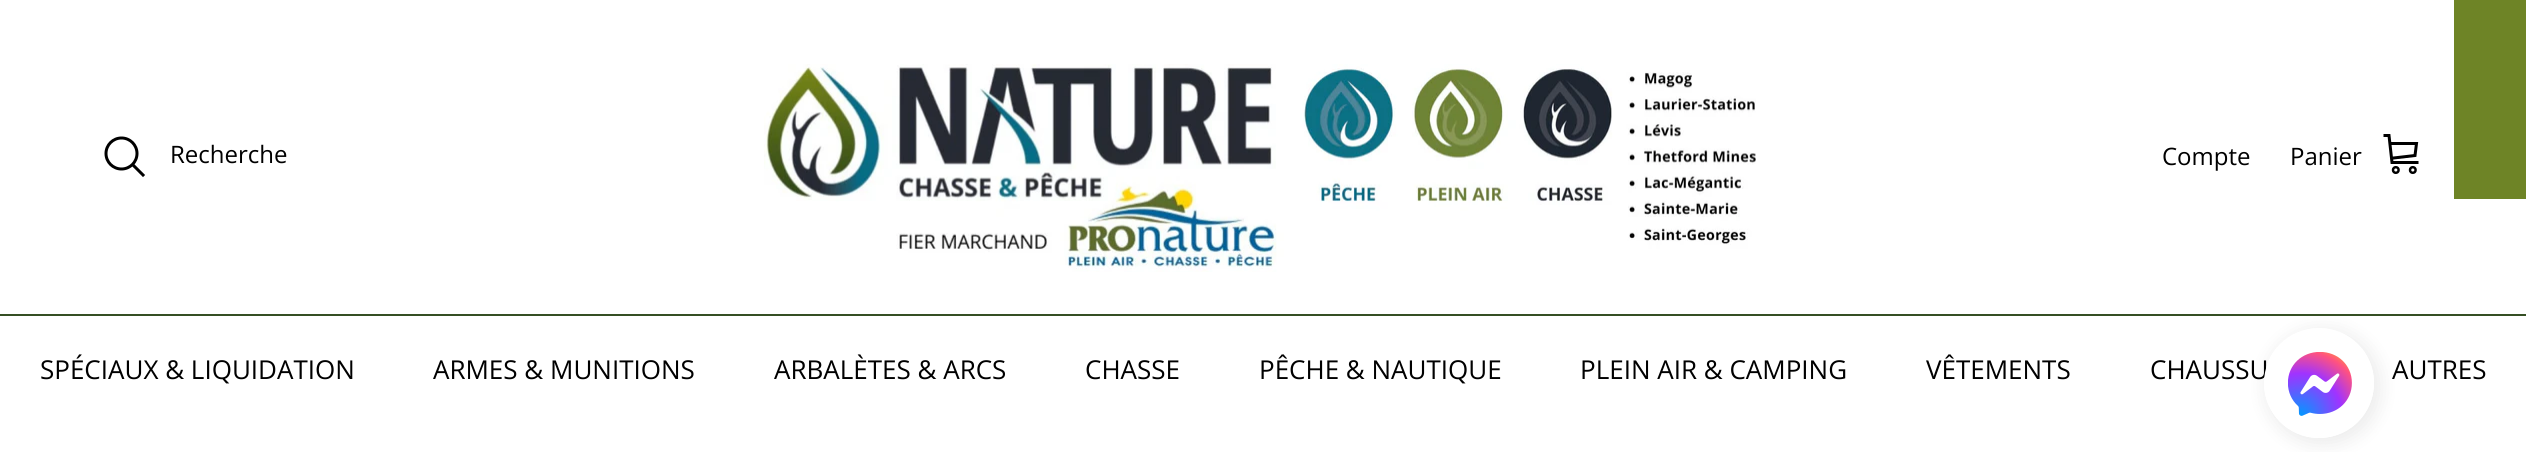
#include <cairo/cairo.h>
#include <math.h>
#include <stddef.h>

static cairo_t *cr;

static void use_color(int r, int g, int b) {
  cairo_set_source_rgb(cr, r / 255.0, g / 255.0, b / 255.0);
}

static void text(double x, double y, const char *s, const char *family, double size, int italic, int bold, int r, int g, int b) {
  cairo_select_font_face(cr, family, italic ? CAIRO_FONT_SLANT_ITALIC : CAIRO_FONT_SLANT_NORMAL,
    bold ? CAIRO_FONT_WEIGHT_BOLD : CAIRO_FONT_WEIGHT_NORMAL);
  cairo_set_font_size(cr, size);
  use_color(r, g, b);
  cairo_move_to(cr, x, y);
  cairo_show_text(cr, s);
}

static void box(double x, double y, double w, double h, int r, int g, int b) {
  use_color(r, g, b);
  cairo_rectangle(cr, x, y, w, h);
  cairo_fill(cr);
}

static void round_rect(double x, double y, double w, double h, double r) {
  cairo_new_sub_path(cr);
  cairo_arc(cr, x + w - r, y + h - r, r, 0, M_PI / 2);
  cairo_arc(cr, x + r, y + h - r, r, M_PI / 2, M_PI);
  cairo_arc(cr, x + r, y + r, r, M_PI, 1.5 * M_PI);
  cairo_arc(cr, x + w - r, y + r, r, 1.5 * M_PI, 2 * M_PI);
  cairo_close_path(cr);
}

static void shadow(double x, double y, double w, double h, double r, double blur, double alpha) {
  cairo_push_group_with_content(cr, CAIRO_CONTENT_ALPHA);
  cairo_set_operator(cr, CAIRO_OPERATOR_SOURCE);
  for (int i = 15; i >= -15 && fmin(w, h) + blur * i / 3 > 0; i -= 2) {
    double e = blur * i / 6;
    cairo_set_source_rgba(cr, 0, 0, 0, alpha * erfc((i - 1) / 8.5) / 2);
    round_rect(x - e, y - e, w + 2 * e, h + 2 * e, fmax(0, fmin(r + e + blur * .6, fmin(w, h) / 2 + e)));
    cairo_fill(cr);
  }
  cairo_pattern_t *soft = cairo_pop_group(cr);
  cairo_mask(cr, soft);
  cairo_pattern_destroy(soft);
}

static void picture(const char *path, double x, double y, double w, double h) {
  cairo_surface_t *image = cairo_image_surface_create_from_png(path);
  cairo_save(cr);
  cairo_set_source_surface(cr, image, x, y);
  cairo_rectangle(cr, x, y, w, h);
  cairo_fill(cr);
  cairo_restore(cr);
  cairo_surface_destroy(image);
}

static void draw(void) {
  use_color(255, 255, 255);
  cairo_paint(cr);
  box(2454, 0, 72, 199, 110, 132, 38);
  box(0, 314, 2526, 2, 53, 79, 36);
  cairo_arc(cr, 121.5, 153.5, 15.5, 0, 2 * M_PI);
  use_color(0, 0, 0);
  cairo_set_line_width(cr, 3);
  cairo_stroke(cr);
  cairo_new_path(cr);
  cairo_move_to(cr, 134, 166);
  cairo_line_to(cr, 143, 175);
  cairo_set_line_cap(cr, CAIRO_LINE_CAP_SQUARE);
  cairo_stroke(cr);
  picture("img_01.png", 764, 64, 992, 208);
  cairo_new_path(cr);
  cairo_move_to(cr, 2385, 135.5);
  cairo_line_to(cr, 2389, 135.5);
  cairo_line_to(cr, 2392, 162.5);
  cairo_line_to(cr, 2417, 162.5);
  cairo_move_to(cr, 2390.5, 143.5);
  cairo_line_to(cr, 2416.5, 143.5);
  cairo_line_to(cr, 2415, 155.5);
  cairo_line_to(cr, 2393.5, 158);
  cairo_stroke(cr);
  cairo_arc(cr, 2395.8, 170, 2.8, 0, 2 * M_PI);
  cairo_set_line_width(cr, 2.5);
  cairo_set_line_cap(cr, CAIRO_LINE_CAP_BUTT);
  cairo_stroke(cr);
  cairo_arc(cr, 2412.8, 170, 2.8, 0, 2 * M_PI);
  cairo_stroke(cr);
  cairo_save(cr);
  cairo_set_fill_rule(cr, CAIRO_FILL_RULE_EVEN_ODD);
  cairo_new_path(cr);
  cairo_move_to(cr, 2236, 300);
  cairo_line_to(cr, 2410, 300);
  cairo_line_to(cr, 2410, 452);
  cairo_line_to(cr, 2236, 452);
  cairo_close_path(cr);
  cairo_move_to(cr, 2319, 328);
  cairo_curve_to(cr, 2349.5, 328, 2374, 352.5, 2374, 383);
  cairo_curve_to(cr, 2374, 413.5, 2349.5, 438, 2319, 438);
  cairo_curve_to(cr, 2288.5, 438, 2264, 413.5, 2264, 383);
  cairo_curve_to(cr, 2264, 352.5, 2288.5, 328, 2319, 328);
  cairo_close_path(cr);
  cairo_clip(cr);
  use_color(0, 0, 0);
  shadow(2264, 328, 118, 118, 59, 9, 0.07);
  cairo_restore(cr);
  text(170, 163, "Recherche", "Open Sans", 24, 0, 0, 0, 0, 0);
  text(2162, 165, "Compte", "Open Sans", 24, 0, 0, 0, 0, 0);
  text(2290, 165, "Panier", "Open Sans", 24, 0, 0, 0, 0, 0);
  text(40, 379, "SPÉCIAUX & LIQUIDATION", "Open Sans", 26, 0, 0, 0, 0, 0);
  text(433, 379, "ARMES & MUNITIONS", "Open Sans", 26, 0, 0, 0, 0, 0);
  text(774, 379, "ARBALÈTES & ARCS", "Open Sans", 26, 0, 0, 0, 0, 0);
  text(1085, 379, "CHASSE", "Open Sans", 26, 0, 0, 0, 0, 0);
  text(1259, 379, "PÊCHE & NAUTIQUE", "Open Sans", 26, 0, 0, 0, 0, 0);
  text(1580, 379, "PLEIN AIR & CAMPING", "Open Sans", 26, 0, 0, 0, 0, 0);
  text(1926, 379, "VÊTEMENTS", "Open Sans", 26, 0, 0, 0, 0, 0);
  text(2150, 379, "CHAUSSU", "Open Sans", 26, 0, 0, 0, 0, 0);
  text(2392, 379, "AUTRES", "Open Sans", 26, 0, 0, 0, 0, 0);
  picture("img_02.png", 2264, 349, 110, 89);
}

int main(void) {
  cairo_surface_t *surface = cairo_image_surface_create(CAIRO_FORMAT_RGB24, 2526, 452);
  cr = cairo_create(surface);
  cairo_font_options_t *options = cairo_font_options_create();
  cairo_font_options_set_hint_metrics(options, CAIRO_HINT_METRICS_OFF);
  cairo_font_options_set_hint_style(options, CAIRO_HINT_STYLE_NONE);
  cairo_set_font_options(cr, options);
  cairo_set_miter_limit(cr, 4);
  draw();
  cairo_surface_write_to_png(surface, "out.png");
  cairo_font_options_destroy(options);
  cairo_destroy(cr);
  cairo_surface_destroy(surface);
  return 0;
}
